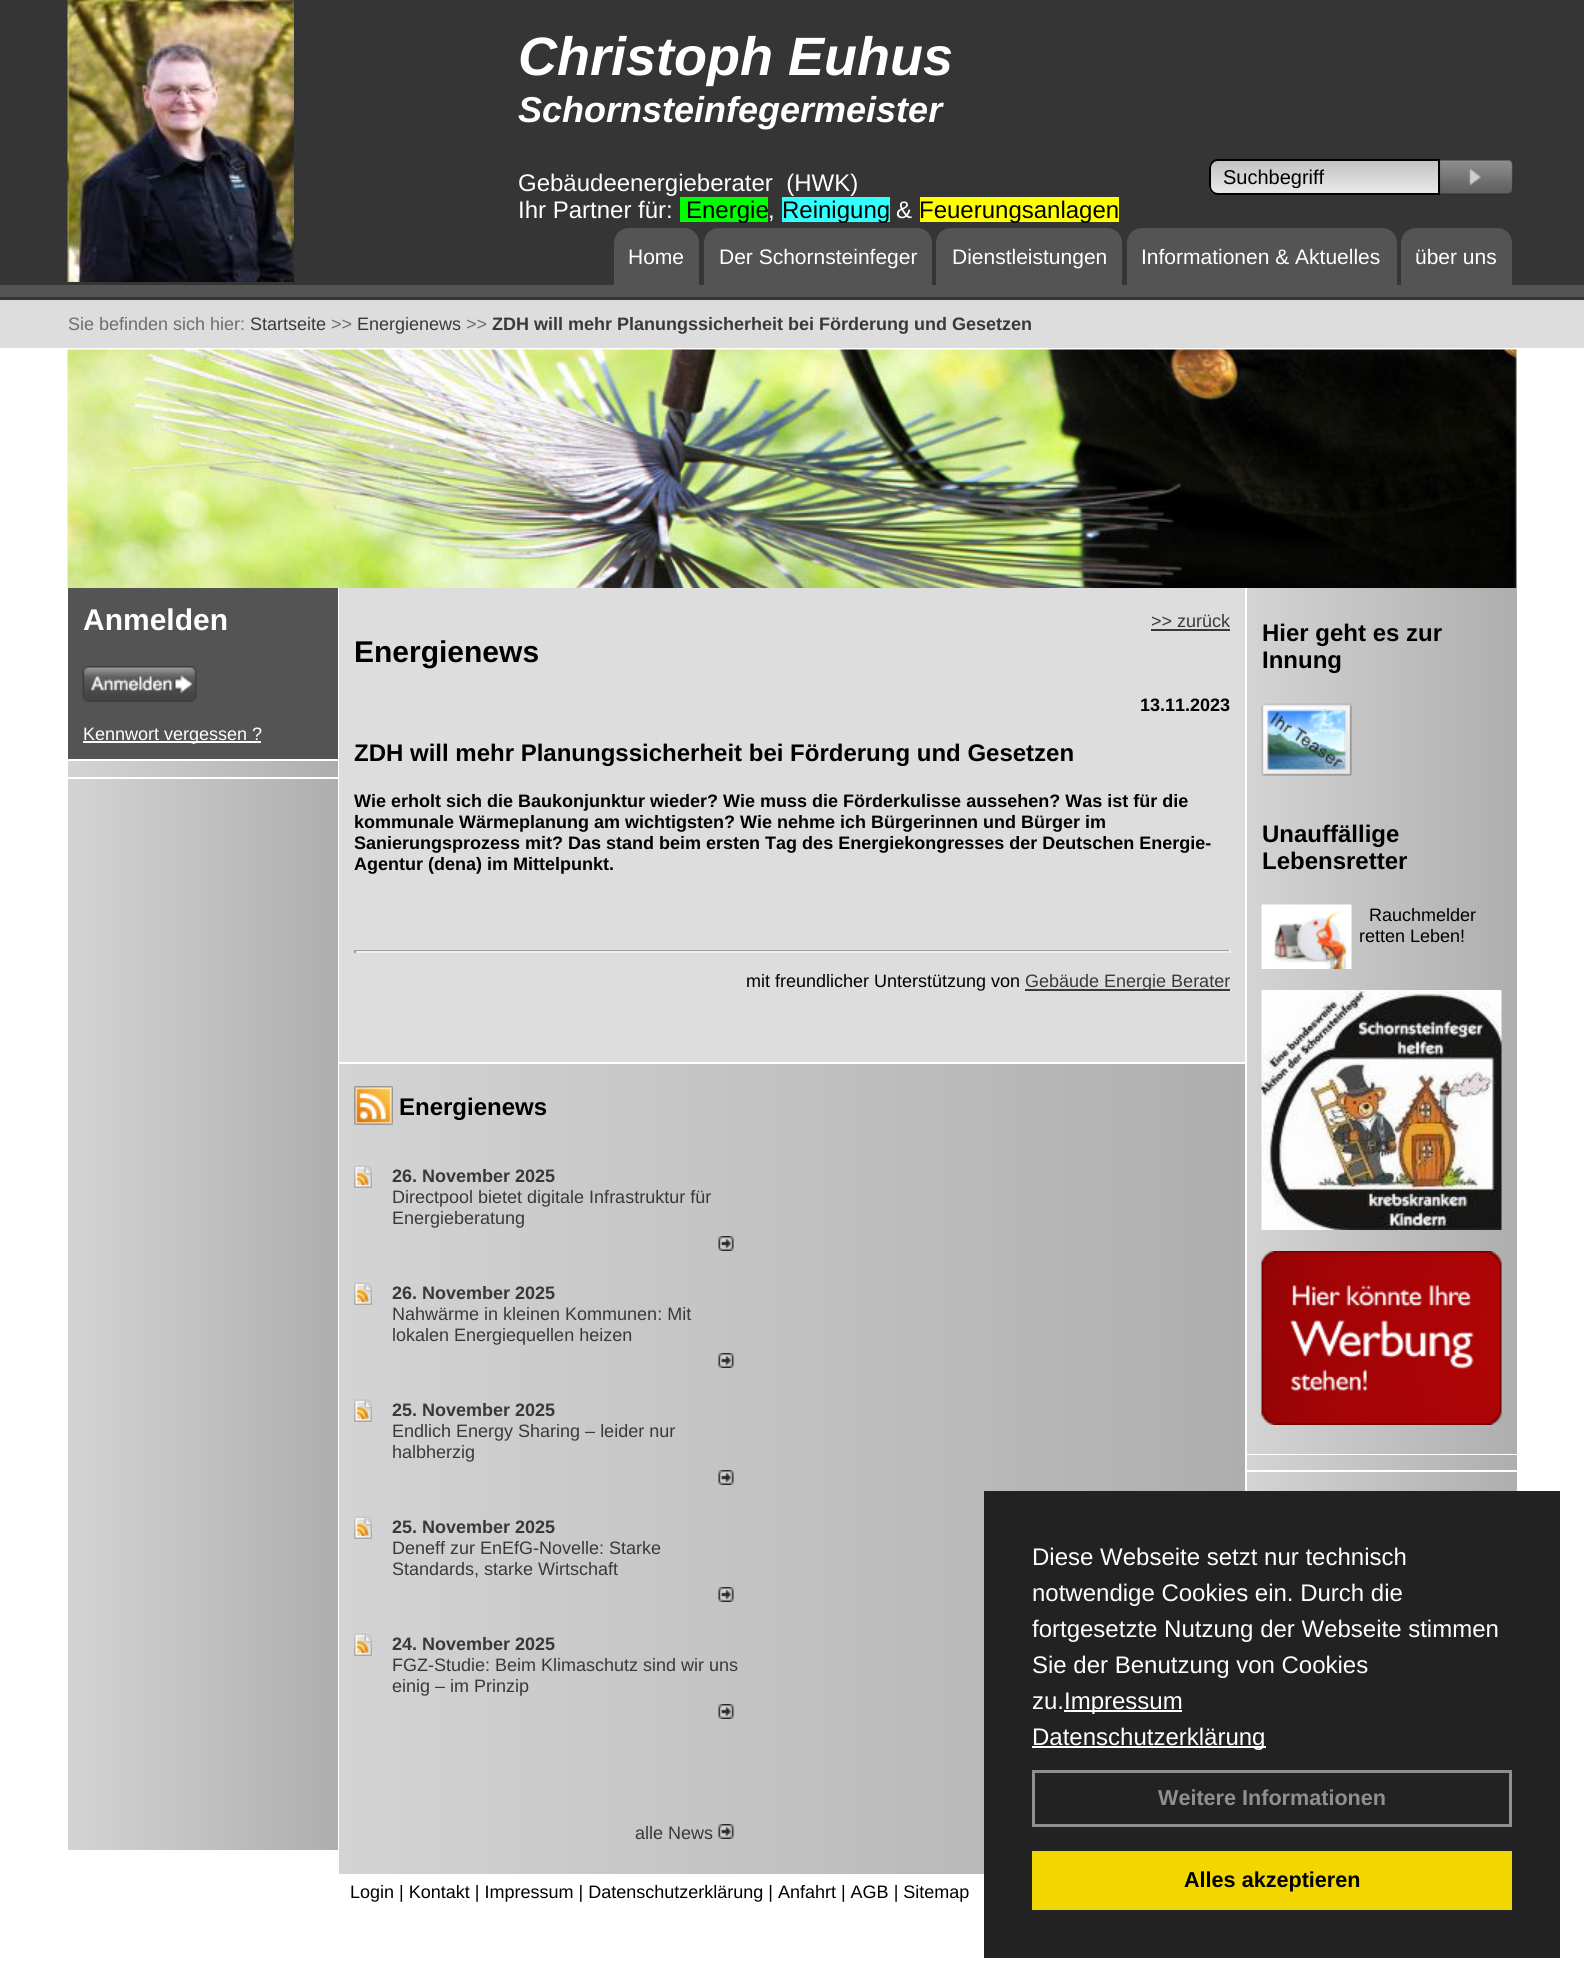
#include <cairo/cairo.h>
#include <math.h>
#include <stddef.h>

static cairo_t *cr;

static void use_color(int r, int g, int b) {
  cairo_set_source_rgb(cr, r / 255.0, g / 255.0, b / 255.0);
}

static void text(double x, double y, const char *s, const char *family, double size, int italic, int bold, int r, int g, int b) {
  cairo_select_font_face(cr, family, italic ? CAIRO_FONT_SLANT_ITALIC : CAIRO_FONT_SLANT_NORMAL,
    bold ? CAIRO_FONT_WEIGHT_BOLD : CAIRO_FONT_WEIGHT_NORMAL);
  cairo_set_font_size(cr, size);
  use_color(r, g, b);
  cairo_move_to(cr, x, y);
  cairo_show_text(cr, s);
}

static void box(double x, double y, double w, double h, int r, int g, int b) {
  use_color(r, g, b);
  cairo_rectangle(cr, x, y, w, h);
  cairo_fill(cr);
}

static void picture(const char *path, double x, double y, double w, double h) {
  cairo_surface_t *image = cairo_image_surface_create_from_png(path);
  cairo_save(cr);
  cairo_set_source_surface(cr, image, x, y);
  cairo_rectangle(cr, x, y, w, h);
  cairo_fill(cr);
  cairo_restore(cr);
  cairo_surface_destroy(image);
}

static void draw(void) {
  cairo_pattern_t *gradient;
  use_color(255, 255, 255);
  cairo_paint(cr);
  box(0, 0, 1584, 300, 53, 53, 53);
  picture("img_01.png", 67, 0, 227, 282);
  box(680, 197, 88, 25, 0, 255, 0);
  box(782, 197, 108, 25, 51, 255, 255);
  box(920, 197, 199, 25, 255, 255, 0);
  cairo_save(cr);
  cairo_new_path(cr);
  cairo_move_to(cr, 1218, 159);
  cairo_line_to(cr, 1440, 159);
  cairo_line_to(cr, 1440, 195);
  cairo_line_to(cr, 1218, 195);
  cairo_curve_to(cr, 1213, 195, 1209, 191, 1209, 186);
  cairo_line_to(cr, 1209, 168);
  cairo_curve_to(cr, 1209, 163, 1213, 159, 1218, 159);
  cairo_close_path(cr);
  cairo_clip(cr);
  gradient = cairo_pattern_create_linear(1325, 160, 1325, 194);
  cairo_pattern_add_color_stop_rgba(gradient, 0, 0.753, 0.753, 0.753, 1);
  cairo_pattern_add_color_stop_rgba(gradient, 1, 0.922, 0.922, 0.922, 1);
  cairo_set_source(cr, gradient);
  cairo_pattern_destroy(gradient);
  cairo_rectangle(cr, 1209, 161, 229, 33);
  cairo_fill(cr);
  cairo_restore(cr);
  cairo_new_path(cr);
  cairo_move_to(cr, 1218, 160);
  cairo_line_to(cr, 1439, 160);
  cairo_line_to(cr, 1439, 194);
  cairo_line_to(cr, 1218, 194);
  cairo_curve_to(cr, 1213.5, 194, 1210, 190.5, 1210, 186);
  cairo_line_to(cr, 1210, 168);
  cairo_curve_to(cr, 1210, 163.5, 1213.5, 160, 1218, 160);
  cairo_close_path(cr);
  use_color(0, 0, 0);
  cairo_stroke(cr);
  picture("img_02.png", 1440, 159, 74, 36);
  box(0, 285, 1584, 12, 84, 84, 84);
  cairo_new_path(cr);
  cairo_move_to(cr, 629, 228);
  cairo_line_to(cr, 684, 228);
  cairo_curve_to(cr, 692.5, 228, 699, 234.5, 699, 243);
  cairo_line_to(cr, 699, 287);
  cairo_line_to(cr, 614, 287);
  cairo_line_to(cr, 614, 243);
  cairo_curve_to(cr, 614, 234.5, 620.5, 228, 629, 228);
  cairo_close_path(cr);
  cairo_fill(cr);
  cairo_new_path(cr);
  cairo_move_to(cr, 719, 228);
  cairo_line_to(cr, 917, 228);
  cairo_curve_to(cr, 925.5, 228, 932, 234.5, 932, 243);
  cairo_line_to(cr, 932, 287);
  cairo_line_to(cr, 704, 287);
  cairo_line_to(cr, 704, 243);
  cairo_curve_to(cr, 704, 234.5, 710.5, 228, 719, 228);
  cairo_close_path(cr);
  cairo_fill(cr);
  cairo_new_path(cr);
  cairo_move_to(cr, 951, 228);
  cairo_line_to(cr, 1107, 228);
  cairo_curve_to(cr, 1115.5, 228, 1122, 234.5, 1122, 243);
  cairo_line_to(cr, 1122, 287);
  cairo_line_to(cr, 936, 287);
  cairo_line_to(cr, 936, 243);
  cairo_curve_to(cr, 936, 234.5, 942.5, 228, 951, 228);
  cairo_close_path(cr);
  cairo_fill(cr);
  cairo_new_path(cr);
  cairo_move_to(cr, 1142, 228);
  cairo_line_to(cr, 1382, 228);
  cairo_curve_to(cr, 1390.5, 228, 1397, 234.5, 1397, 243);
  cairo_line_to(cr, 1397, 287);
  cairo_line_to(cr, 1127, 287);
  cairo_line_to(cr, 1127, 243);
  cairo_curve_to(cr, 1127, 234.5, 1133.5, 228, 1142, 228);
  cairo_close_path(cr);
  cairo_fill(cr);
  cairo_new_path(cr);
  cairo_move_to(cr, 1416, 228);
  cairo_line_to(cr, 1497, 228);
  cairo_curve_to(cr, 1505.5, 228, 1512, 234.5, 1512, 243);
  cairo_line_to(cr, 1512, 287);
  cairo_line_to(cr, 1401, 287);
  cairo_line_to(cr, 1401, 243);
  cairo_curve_to(cr, 1401, 234.5, 1407.5, 228, 1416, 228);
  cairo_close_path(cr);
  cairo_fill(cr);
  box(0, 300, 1584, 48, 221, 221, 221);
  picture("img_03.png", 67, 349, 1450, 239);
  box(68, 588, 270, 171, 84, 84, 84);
  picture("img_04.png", 82, 666, 115, 36);
  box(83, 741, 178, 2, 255, 255, 255);
  gradient = cairo_pattern_create_linear(68, 769, 338, 769);
  cairo_pattern_add_color_stop_rgba(gradient, 0, 0.831, 0.831, 0.831, 1);
  cairo_pattern_add_color_stop_rgba(gradient, 1, 0.682, 0.682, 0.682, 1);
  cairo_set_source(cr, gradient);
  cairo_pattern_destroy(gradient);
  cairo_rectangle(cr, 68, 761, 270, 16);
  cairo_fill(cr);
  gradient = cairo_pattern_create_linear(67, 1314, 338, 1314);
  cairo_pattern_add_color_stop_rgba(gradient, 0, 0.831, 0.831, 0.831, 1);
  cairo_pattern_add_color_stop_rgba(gradient, 1, 0.682, 0.682, 0.682, 1);
  cairo_set_source(cr, gradient);
  cairo_pattern_destroy(gradient);
  cairo_rectangle(cr, 68, 779, 270, 1071);
  cairo_fill(cr);
  box(339, 588, 906, 474, 221, 221, 221);
  box(1151, 629, 79, 2, 57, 57, 57);
  box(354, 950, 876, 1, 159, 159, 159);
  box(1229, 950, 2, 3, 238, 238, 238);
  box(354, 951, 876, 2, 238, 238, 238);
  box(354, 950, 2, 3, 159, 159, 159);
  box(1025, 989, 205, 2, 57, 57, 57);
  gradient = cairo_pattern_create_linear(339, 1469, 1245, 1469);
  cairo_pattern_add_color_stop_rgba(gradient, 0, 0.831, 0.831, 0.831, 1);
  cairo_pattern_add_color_stop_rgba(gradient, 1, 0.682, 0.682, 0.682, 1);
  cairo_set_source(cr, gradient);
  cairo_pattern_destroy(gradient);
  cairo_rectangle(cr, 339, 1064, 906, 810);
  cairo_fill(cr);
  picture("img_05.png", 354, 1086, 39, 39);
  picture("img_06.png", 354, 1165, 18, 23);
  picture("img_07.png", 718, 1236, 16, 15);
  picture("img_06.png", 354, 1282, 18, 23);
  picture("img_07.png", 718, 1353, 16, 15);
  picture("img_06.png", 354, 1399, 18, 23);
  picture("img_07.png", 718, 1470, 16, 15);
  picture("img_06.png", 354, 1516, 18, 23);
  picture("img_07.png", 718, 1587, 16, 15);
  picture("img_06.png", 354, 1633, 18, 23);
  picture("img_07.png", 718, 1704, 16, 15);
  picture("img_07.png", 718, 1824, 16, 15);
  gradient = cairo_pattern_create_linear(1247, 1021, 1517, 1021);
  cairo_pattern_add_color_stop_rgba(gradient, 0, 0.831, 0.831, 0.831, 1);
  cairo_pattern_add_color_stop_rgba(gradient, 1, 0.682, 0.682, 0.682, 1);
  cairo_set_source(cr, gradient);
  cairo_pattern_destroy(gradient);
  cairo_rectangle(cr, 1247, 588, 270, 866);
  cairo_fill(cr);
  picture("img_08.png", 1261, 703, 91, 73);
  picture("img_09.png", 1261, 904, 91, 65);
  picture("img_10.png", 1261, 990, 241, 240);
  picture("img_11.png", 1261, 1251, 241, 174);
  gradient = cairo_pattern_create_linear(1247, 1463, 1517, 1463);
  cairo_pattern_add_color_stop_rgba(gradient, 0, 0.831, 0.831, 0.831, 1);
  cairo_pattern_add_color_stop_rgba(gradient, 1, 0.682, 0.682, 0.682, 1);
  cairo_set_source(cr, gradient);
  cairo_pattern_destroy(gradient);
  cairo_rectangle(cr, 1247, 1455, 270, 15);
  cairo_fill(cr);
  gradient = cairo_pattern_create_linear(1247, 1661, 1517, 1661);
  cairo_pattern_add_color_stop_rgba(gradient, 0, 0.831, 0.831, 0.831, 1);
  cairo_pattern_add_color_stop_rgba(gradient, 1, 0.682, 0.682, 0.682, 1);
  cairo_set_source(cr, gradient);
  cairo_pattern_destroy(gradient);
  cairo_rectangle(cr, 1247, 1472, 270, 19);
  cairo_fill(cr);
  box(984, 1491, 576, 467, 34, 34, 34);
  box(1064, 1710, 118, 2, 255, 255, 255);
  box(1032, 1746, 234, 2, 255, 255, 255);
  cairo_rectangle(cr, 1033.5, 1771.5, 477, 54);
  use_color(143, 143, 143);
  cairo_set_line_width(cr, 3);
  cairo_stroke(cr);
  box(1032, 1851, 480, 59, 241, 214, 0);
  text(518, 75, "Christoph Euhus", "Liberation Sans", 54, 1, 1, 255, 255, 255);
  text(518, 122, "Schornsteinfegermeister", "Liberation Sans", 36, 1, 1, 255, 255, 255);
  text(518, 191, "Gebäudeenergieberater  (HWK)", "Liberation Sans", 24, 0, 0, 255, 255, 255);
  text(518, 218, "Ihr Partner für:", "Liberation Sans", 24, 0, 0, 255, 255, 255);
  text(686, 218, "Energie", "Liberation Sans", 24, 0, 0, 0, 0, 0);
  text(768, 218, ",", "Liberation Sans", 24, 0, 0, 255, 255, 255);
  text(782, 218, "Reinigung", "Liberation Sans", 24, 0, 0, 0, 0, 0);
  text(896, 218, "&", "Liberation Sans", 24, 0, 0, 255, 255, 255);
  text(919, 218, "Feuerungsanlagen", "Liberation Sans", 24, 0, 0, 0, 0, 0);
  text(1223, 184, "Suchbegriff", "Liberation Sans", 20, 0, 0, 0, 0, 0);
  text(628, 264, "Home", "Liberation Sans", 21, 0, 0, 255, 255, 255);
  text(719, 264, "Der Schornsteinfeger", "Liberation Sans", 21, 0, 0, 255, 255, 255);
  text(952, 264, "Dienstleistungen", "Liberation Sans", 21, 0, 0, 255, 255, 255);
  text(1141, 264, "Informationen & Aktuelles", "Liberation Sans", 21, 0, 0, 255, 255, 255);
  text(1415, 264, "über uns", "Liberation Sans", 21, 0, 0, 255, 255, 255);
  text(68, 330, "Sie befinden sich hier:", "Liberation Sans", 18, 0, 0, 109, 109, 109);
  text(250, 330, "Startseite", "Liberation Sans", 18, 0, 0, 57, 57, 57);
  text(331, 330, ">>", "Liberation Sans", 18, 0, 0, 109, 109, 109);
  text(357, 330, "Energienews", "Liberation Sans", 18, 0, 0, 57, 57, 57);
  text(466, 330, ">>", "Liberation Sans", 18, 0, 0, 109, 109, 109);
  text(492, 330, "ZDH will mehr Planungssicherheit bei Förderung und Gesetzen", "Liberation Sans", 18, 0, 1, 57, 57, 57);
  text(83, 630, "Anmelden", "Liberation Sans", 30, 0, 1, 255, 255, 255);
  text(83, 740, "Kennwort vergessen ?", "Liberation Sans", 18, 0, 0, 255, 255, 255);
  text(1151, 627, ">> zurück", "Liberation Sans", 18, 0, 0, 57, 57, 57);
  text(354, 662, "Energienews", "Liberation Sans", 30, 0, 1, 0, 0, 0);
  text(1140, 711, "13.11.2023", "Liberation Sans", 18, 0, 1, 0, 0, 0);
  text(354, 761, "ZDH will mehr Planungssicherheit bei Förderung und Gesetzen", "Liberation Sans", 24, 0, 1, 0, 0, 0);
  text(354, 807, "Wie erholt sich die Baukonjunktur wieder? Wie muss die Förderkulisse aussehen? Was ist für die", "Liberation Sans", 18, 0, 1, 0, 0, 0);
  text(354, 828, "kommunale Wärmeplanung am wichtigsten? Wie nehme ich Bürgerinnen und Bürger im", "Liberation Sans", 18, 0, 1, 0, 0, 0);
  text(354, 849, "Sanierungsprozess mit? Das stand beim ersten Tag des Energiekongresses der Deutschen Energie-", "Liberation Sans", 18, 0, 1, 0, 0, 0);
  text(354, 870, "Agentur (dena) im Mittelpunkt.", "Liberation Sans", 18, 0, 1, 0, 0, 0);
  text(746, 987, "mit freundlicher Unterstützung von", "Liberation Sans", 18, 0, 0, 0, 0, 0);
  text(1025, 987, "Gebäude Energie Berater", "Liberation Sans", 18, 0, 0, 57, 57, 57);
  text(399, 1115, "Energienews", "Liberation Sans", 24, 0, 1, 0, 0, 0);
  text(392, 1182, "26. November 2025", "Liberation Sans", 18, 0, 1, 57, 57, 57);
  text(392, 1203, "Directpool bietet digitale Infrastruktur für", "Liberation Sans", 18, 0, 0, 57, 57, 57);
  text(392, 1224, "Energieberatung", "Liberation Sans", 18, 0, 0, 57, 57, 57);
  text(392, 1299, "26. November 2025", "Liberation Sans", 18, 0, 1, 57, 57, 57);
  text(392, 1320, "Nahwärme in kleinen Kommunen: Mit", "Liberation Sans", 18, 0, 0, 57, 57, 57);
  text(392, 1341, "lokalen Energiequellen heizen", "Liberation Sans", 18, 0, 0, 57, 57, 57);
  text(392, 1416, "25. November 2025", "Liberation Sans", 18, 0, 1, 57, 57, 57);
  text(392, 1437, "Endlich Energy Sharing – leider nur", "Liberation Sans", 18, 0, 0, 57, 57, 57);
  text(392, 1458, "halbherzig", "Liberation Sans", 18, 0, 0, 57, 57, 57);
  text(392, 1533, "25. November 2025", "Liberation Sans", 18, 0, 1, 57, 57, 57);
  text(392, 1554, "Deneff zur EnEfG-Novelle: Starke", "Liberation Sans", 18, 0, 0, 57, 57, 57);
  text(392, 1575, "Standards, starke Wirtschaft", "Liberation Sans", 18, 0, 0, 57, 57, 57);
  text(392, 1650, "24. November 2025", "Liberation Sans", 18, 0, 1, 57, 57, 57);
  text(392, 1671, "FGZ-Studie: Beim Klimaschutz sind wir uns", "Liberation Sans", 18, 0, 0, 57, 57, 57);
  text(392, 1692, "einig – im Prinzip", "Liberation Sans", 18, 0, 0, 57, 57, 57);
  text(635, 1839, "alle News", "Liberation Sans", 18, 0, 0, 57, 57, 57);
  text(1262, 641, "Hier geht es zur", "Liberation Sans", 24, 0, 1, 0, 0, 0);
  text(1262, 668, "Innung", "Liberation Sans", 24, 0, 1, 0, 0, 0);
  text(1262, 842, "Unauffällige", "Liberation Sans", 24, 0, 1, 0, 0, 0);
  text(1262, 869, "Lebensretter", "Liberation Sans", 24, 0, 1, 0, 0, 0);
  text(1369, 921, "Rauchmelder", "Liberation Sans", 18, 0, 0, 0, 0, 0);
  text(1359, 942, "retten Leben!", "Liberation Sans", 18, 0, 0, 0, 0, 0);
  text(350, 1898, "Login | Kontakt | Impressum | Datenschutzerklärung | Anfahrt | AGB | Sitemap", "Liberation Sans", 18, 0, 0, 0, 0, 0);
  text(1032, 1565, "Diese Webseite setzt nur technisch", "Liberation Sans", 24, 0, 0, 255, 255, 255);
  text(1032, 1601, "notwendige Cookies ein. Durch die", "Liberation Sans", 24, 0, 0, 255, 255, 255);
  text(1032, 1637, "fortgesetzte Nutzung der Webseite stimmen", "Liberation Sans", 24, 0, 0, 255, 255, 255);
  text(1032, 1673, "Sie der Benutzung von Cookies", "Liberation Sans", 24, 0, 0, 255, 255, 255);
  text(1032, 1709, "zu.", "Liberation Sans", 24, 0, 0, 255, 255, 255);
  text(1064, 1709, "Impressum", "Liberation Sans", 24, 0, 0, 255, 255, 255);
  text(1032, 1745, "Datenschutzerklärung", "Liberation Sans", 24, 0, 0, 255, 255, 255);
  text(1158, 1805, "Weitere Informationen", "Liberation Sans", 21.6, 0, 1, 143, 143, 143);
  text(1184, 1887, "Alles akzeptieren", "Liberation Sans", 21.6, 0, 1, 0, 0, 0);
}

int main(void) {
  cairo_surface_t *surface = cairo_image_surface_create(CAIRO_FORMAT_RGB24, 1584, 1981);
  cr = cairo_create(surface);
  cairo_font_options_t *options = cairo_font_options_create();
  cairo_font_options_set_hint_metrics(options, CAIRO_HINT_METRICS_OFF);
  cairo_font_options_set_hint_style(options, CAIRO_HINT_STYLE_NONE);
  cairo_set_font_options(cr, options);
  cairo_set_miter_limit(cr, 4);
  draw();
  cairo_surface_write_to_png(surface, "out.png");
  cairo_font_options_destroy(options);
  cairo_destroy(cr);
  cairo_surface_destroy(surface);
  return 0;
}
